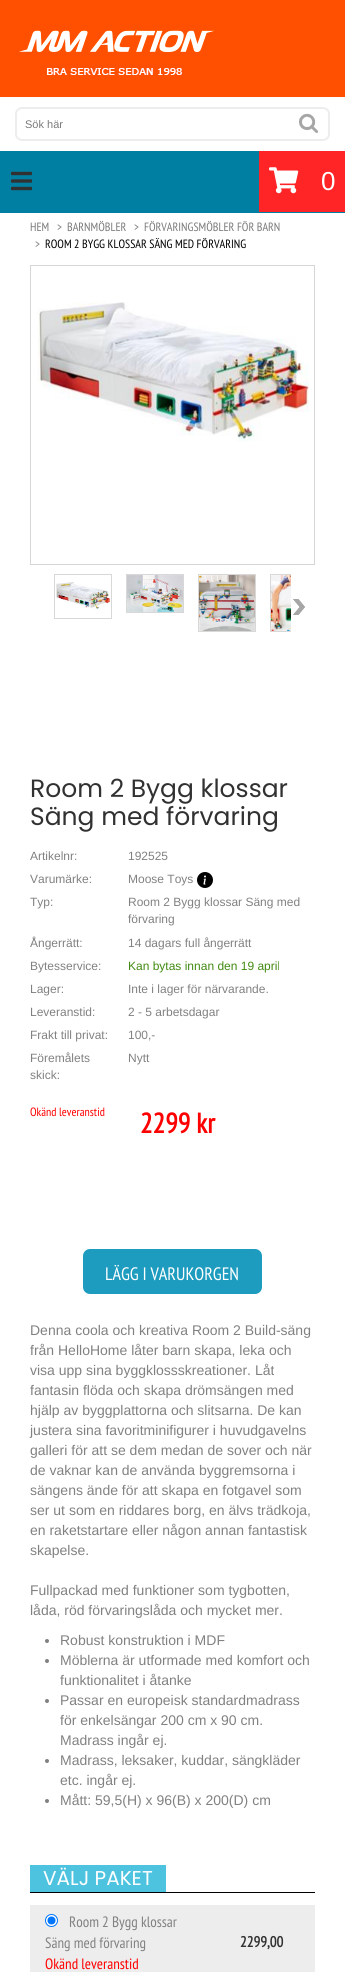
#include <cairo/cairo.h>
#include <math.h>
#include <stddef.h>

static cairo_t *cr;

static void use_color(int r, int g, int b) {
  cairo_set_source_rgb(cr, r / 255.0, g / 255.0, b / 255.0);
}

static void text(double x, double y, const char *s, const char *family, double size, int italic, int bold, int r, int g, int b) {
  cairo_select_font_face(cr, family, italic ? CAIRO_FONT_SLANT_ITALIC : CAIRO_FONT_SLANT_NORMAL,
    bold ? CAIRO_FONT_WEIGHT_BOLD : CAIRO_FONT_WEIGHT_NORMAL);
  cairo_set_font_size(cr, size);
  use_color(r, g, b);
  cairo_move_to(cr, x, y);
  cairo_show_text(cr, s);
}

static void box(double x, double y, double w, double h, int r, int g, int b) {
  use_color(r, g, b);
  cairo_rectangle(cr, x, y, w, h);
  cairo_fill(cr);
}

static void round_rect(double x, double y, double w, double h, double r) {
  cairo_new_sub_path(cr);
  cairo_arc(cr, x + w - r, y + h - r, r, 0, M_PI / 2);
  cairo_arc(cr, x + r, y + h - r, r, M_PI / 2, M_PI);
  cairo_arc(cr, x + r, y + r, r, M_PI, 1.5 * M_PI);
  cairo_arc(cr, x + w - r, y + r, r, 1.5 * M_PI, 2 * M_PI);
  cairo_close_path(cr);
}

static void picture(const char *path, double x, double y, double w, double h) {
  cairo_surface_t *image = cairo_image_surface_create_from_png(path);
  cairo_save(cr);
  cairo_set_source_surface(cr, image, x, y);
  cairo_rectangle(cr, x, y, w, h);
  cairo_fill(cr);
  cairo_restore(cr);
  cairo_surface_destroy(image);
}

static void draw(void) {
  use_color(255, 255, 255);
  cairo_paint(cr);
  box(0, 0, 345, 97, 254, 80, 0);
  picture("img_01.png", 5, 2, 210, 73);
  round_rect(16, 108, 313, 32, 6);
  use_color(237, 237, 237);
  cairo_stroke(cr);
  picture("img_02.png", 299, 113, 19, 20);
  box(0, 151, 345, 62, 0, 127, 163);
  picture("img_03.png", 11, 171, 21, 20);
  box(259, 151, 86, 61, 255, 37, 39);
  picture("img_04.png", 269, 167, 30, 27);
  cairo_rectangle(cr, 30.5, 265.5, 284, 299);
  use_color(214, 214, 214);
  cairo_set_line_width(cr, 1);
  cairo_stroke(cr);
  picture("img_05.png", 37, 302, 272, 140);
  cairo_rectangle(cr, 54.5, 574.5, 57, 44);
  use_color(216, 216, 216);
  cairo_stroke(cr);
  picture("img_06.png", 56, 582, 55, 27);
  cairo_rectangle(cr, 126.5, 574.5, 57, 38);
  cairo_stroke(cr);
  picture("img_07.png", 127, 575, 56, 37);
  cairo_rectangle(cr, 198.5, 574.5, 57, 57);
  cairo_stroke(cr);
  picture("img_08.png", 199, 575, 56, 56);
  cairo_save(cr);
  cairo_rectangle(cr, 54, 574, 237, 58);
  cairo_clip(cr);
  cairo_rectangle(cr, 270.5, 574.5, 57, 57);
  cairo_stroke(cr);
  cairo_restore(cr);
  picture("img_09.png", 271, 575, 20, 56);
  picture("img_10.png", 293, 599, 12, 16);
  picture("img_11.png", 293, 599, 12, 16);
  picture("img_12.png", 197, 872, 16, 16);
  use_color(29, 156, 192);
  round_rect(84, 1250, 177, 43, 6);
  cairo_fill_preserve(cr);
  cairo_set_line_width(cr, 2);
  cairo_stroke(cr);
  use_color(129, 129, 129);
  cairo_arc(cr, 47, 1641, 2, 0, 2 * M_PI);
  cairo_fill(cr);
  cairo_arc(cr, 47, 1661, 2, 0, 2 * M_PI);
  cairo_fill(cr);
  cairo_arc(cr, 47, 1701, 2, 0, 2 * M_PI);
  cairo_fill(cr);
  cairo_arc(cr, 47, 1761, 2, 0, 2 * M_PI);
  cairo_fill(cr);
  cairo_arc(cr, 47, 1801, 2, 0, 2 * M_PI);
  cairo_fill(cr);
  box(30, 1892, 285, 1, 0, 0, 0);
  box(30, 1865, 136, 27, 78, 195, 224);
  box(30, 1905, 285, 67, 237, 237, 237);
  use_color(255, 255, 255);
  cairo_arc(cr, 51.5, 1920.5, 6, 0, 2 * M_PI);
  cairo_fill_preserve(cr);
  use_color(0, 117, 255);
  cairo_set_line_width(cr, 1);
  cairo_stroke(cr);
  cairo_arc(cr, 51.5, 1920.5, 4, 0, 2 * M_PI);
  cairo_fill(cr);
  text(25, 128, "Sök här", "Liberation Sans", 11, 0, 0, 122, 122, 122);
  text(321, 190, "0", "Liberation Sans", 26, 0, 0, 255, 255, 255);
  text(30, 231, "HEM", "PT Sans Narrow", 12, 0, 0, 122, 122, 122);
  text(57, 231, ">", "PT Sans Narrow", 12, 0, 0, 122, 122, 122);
  text(67, 231, "BARNMÖBLER", "PT Sans Narrow", 12, 0, 0, 122, 122, 122);
  text(134, 231, ">", "PT Sans Narrow", 12, 0, 0, 122, 122, 122);
  text(144, 231, "FÖRVARINGSMÖBLER FÖR BARN", "PT Sans Narrow", 12, 0, 0, 122, 122, 122);
  text(35, 248, ">", "PT Sans Narrow", 12, 0, 0, 122, 122, 122);
  text(45, 248, "ROOM 2 BYGG KLOSSAR SÄNG MED FÖRVARING", "PT Sans Narrow", 12, 0, 0, 0, 0, 0);
  text(30, 797, "Room 2 Bygg klossar", "Poppins", 25, 0, 0, 49, 49, 49);
  text(30, 825, "Säng med förvaring", "Poppins", 25, 0, 0, 49, 49, 49);
  text(30, 860, "Artikelnr:", "Liberation Sans", 12, 0, 0, 129, 129, 129);
  text(128, 860, "192525", "Liberation Sans", 12, 0, 0, 129, 129, 129);
  text(30, 883, "Varumärke:", "Liberation Sans", 12, 0, 0, 129, 129, 129);
  text(128, 883, "Moose Toys", "Liberation Sans", 12, 0, 0, 129, 129, 129);
  text(30, 906, "Typ:", "Liberation Sans", 12, 0, 0, 129, 129, 129);
  text(128, 906, "Room 2 Bygg klossar Säng med", "Liberation Sans", 12, 0, 0, 129, 129, 129);
  text(128, 923, "förvaring", "Liberation Sans", 12, 0, 0, 129, 129, 129);
  text(30, 947, "Ångerrätt:", "Liberation Sans", 12, 0, 0, 129, 129, 129);
  text(128, 947, "14 dagars full ångerrätt", "Liberation Sans", 12, 0, 0, 129, 129, 129);
  text(30, 970, "Bytesservice:", "Liberation Sans", 12, 0, 0, 129, 129, 129);
  text(128, 970, "Kan bytas innan den 19 april", "Liberation Sans", 12, 0, 0, 66, 138, 18);
  text(30, 993, "Lager:", "Liberation Sans", 12, 0, 0, 129, 129, 129);
  text(128, 993, "Inte i lager för närvarande.", "Liberation Sans", 12, 0, 0, 129, 129, 129);
  text(30, 1016, "Leveranstid:", "Liberation Sans", 12, 0, 0, 129, 129, 129);
  text(128, 1016, "2 - 5 arbetsdagar", "Liberation Sans", 12, 0, 0, 129, 129, 129);
  text(30, 1039, "Frakt till privat:", "Liberation Sans", 12, 0, 0, 129, 129, 129);
  text(128, 1039, "100,-", "Liberation Sans", 12, 0, 0, 129, 129, 129);
  text(30, 1062, "Föremålets", "Liberation Sans", 12, 0, 0, 129, 129, 129);
  text(30, 1079, "skick:", "Liberation Sans", 12, 0, 0, 129, 129, 129);
  text(128, 1062, "Nytt", "Liberation Sans", 12, 0, 0, 129, 129, 129);
  text(30, 1116, "Okänd leveranstid", "PT Sans Narrow", 12, 0, 0, 255, 0, 0);
  text(140, 1133, "2299 kr", "PT Sans Narrow", 28, 0, 1, 255, 0, 0);
  text(105, 1280, "LÄGG I VARUKORGEN", "PT Sans Narrow", 18, 0, 0, 255, 255, 255);
  text(30, 1335, "Denna coola och kreativa Room 2 Build-säng", "Liberation Sans", 14, 0, 0, 129, 129, 129);
  text(30, 1355, "från HelloHome låter barn skapa, leka och", "Liberation Sans", 14, 0, 0, 129, 129, 129);
  text(30, 1375, "visa upp sina byggklossskreationer. Låt", "Liberation Sans", 14, 0, 0, 129, 129, 129);
  text(30, 1395, "fantasin flöda och skapa drömsängen med", "Liberation Sans", 14, 0, 0, 129, 129, 129);
  text(30, 1415, "hjälp av byggplattorna och slitsarna. De kan", "Liberation Sans", 14, 0, 0, 129, 129, 129);
  text(30, 1435, "justera sina favoritminifigurer i huvudgavelns", "Liberation Sans", 14, 0, 0, 129, 129, 129);
  text(30, 1455, "galleri för att se dem medan de sover och när", "Liberation Sans", 14, 0, 0, 129, 129, 129);
  text(30, 1475, "de vaknar kan de använda byggremsorna i", "Liberation Sans", 14, 0, 0, 129, 129, 129);
  text(30, 1495, "sängens ände för att skapa en fotgavel som", "Liberation Sans", 14, 0, 0, 129, 129, 129);
  text(30, 1515, "ser ut som en riddares borg, en älvs trädkoja,", "Liberation Sans", 14, 0, 0, 129, 129, 129);
  text(30, 1535, "en raketstartare eller någon annan fantastisk", "Liberation Sans", 14, 0, 0, 129, 129, 129);
  text(30, 1555, "skapelse.", "Liberation Sans", 14, 0, 0, 129, 129, 129);
  text(30, 1595, "Fullpackad med funktioner som tygbotten,", "Liberation Sans", 14, 0, 0, 129, 129, 129);
  text(30, 1615, "låda, röd förvaringslåda och mycket mer.", "Liberation Sans", 14, 0, 0, 129, 129, 129);
  text(60, 1645, "Robust konstruktion i MDF", "Liberation Sans", 14, 0, 0, 129, 129, 129);
  text(60, 1665, "Möblerna är utformade med komfort och", "Liberation Sans", 14, 0, 0, 129, 129, 129);
  text(60, 1685, "funktionalitet i åtanke", "Liberation Sans", 14, 0, 0, 129, 129, 129);
  text(60, 1705, "Passar en europeisk standardmadrass", "Liberation Sans", 14, 0, 0, 129, 129, 129);
  text(60, 1725, "för enkelsängar 200 cm x 90 cm.", "Liberation Sans", 14, 0, 0, 129, 129, 129);
  text(60, 1745, "Madrass ingår ej.", "Liberation Sans", 14, 0, 0, 129, 129, 129);
  text(60, 1765, "Madrass, leksaker, kuddar, sängkläder", "Liberation Sans", 14, 0, 0, 129, 129, 129);
  text(60, 1785, "etc. ingår ej.", "Liberation Sans", 14, 0, 0, 129, 129, 129);
  text(60, 1805, "Mått: 59,5(H) x 96(B) x 200(D) cm", "Liberation Sans", 14, 0, 0, 129, 129, 129);
  text(43, 1885, "VÄLJ PAKET", "Poppins", 20, 0, 0, 255, 255, 255);
  text(69, 1927, "Room 2 Bygg klossar", "PT Sans Narrow", 15, 0, 0, 129, 129, 129);
  text(45, 1948, "Säng med förvaring", "PT Sans Narrow", 15, 0, 0, 129, 129, 129);
  text(45, 1969, "Okänd leveranstid", "PT Sans Narrow", 15, 0, 0, 255, 0, 0);
  text(240, 1947, "2299,00", "PT Sans Narrow", 15, 0, 1, 49, 49, 49);
}

int main(void) {
  cairo_surface_t *surface = cairo_image_surface_create(CAIRO_FORMAT_RGB24, 345, 1972);
  cr = cairo_create(surface);
  cairo_font_options_t *options = cairo_font_options_create();
  cairo_font_options_set_hint_metrics(options, CAIRO_HINT_METRICS_OFF);
  cairo_font_options_set_hint_style(options, CAIRO_HINT_STYLE_NONE);
  cairo_set_font_options(cr, options);
  cairo_set_miter_limit(cr, 4);
  draw();
  cairo_surface_write_to_png(surface, "out.png");
  cairo_font_options_destroy(options);
  cairo_destroy(cr);
  cairo_surface_destroy(surface);
  return 0;
}
